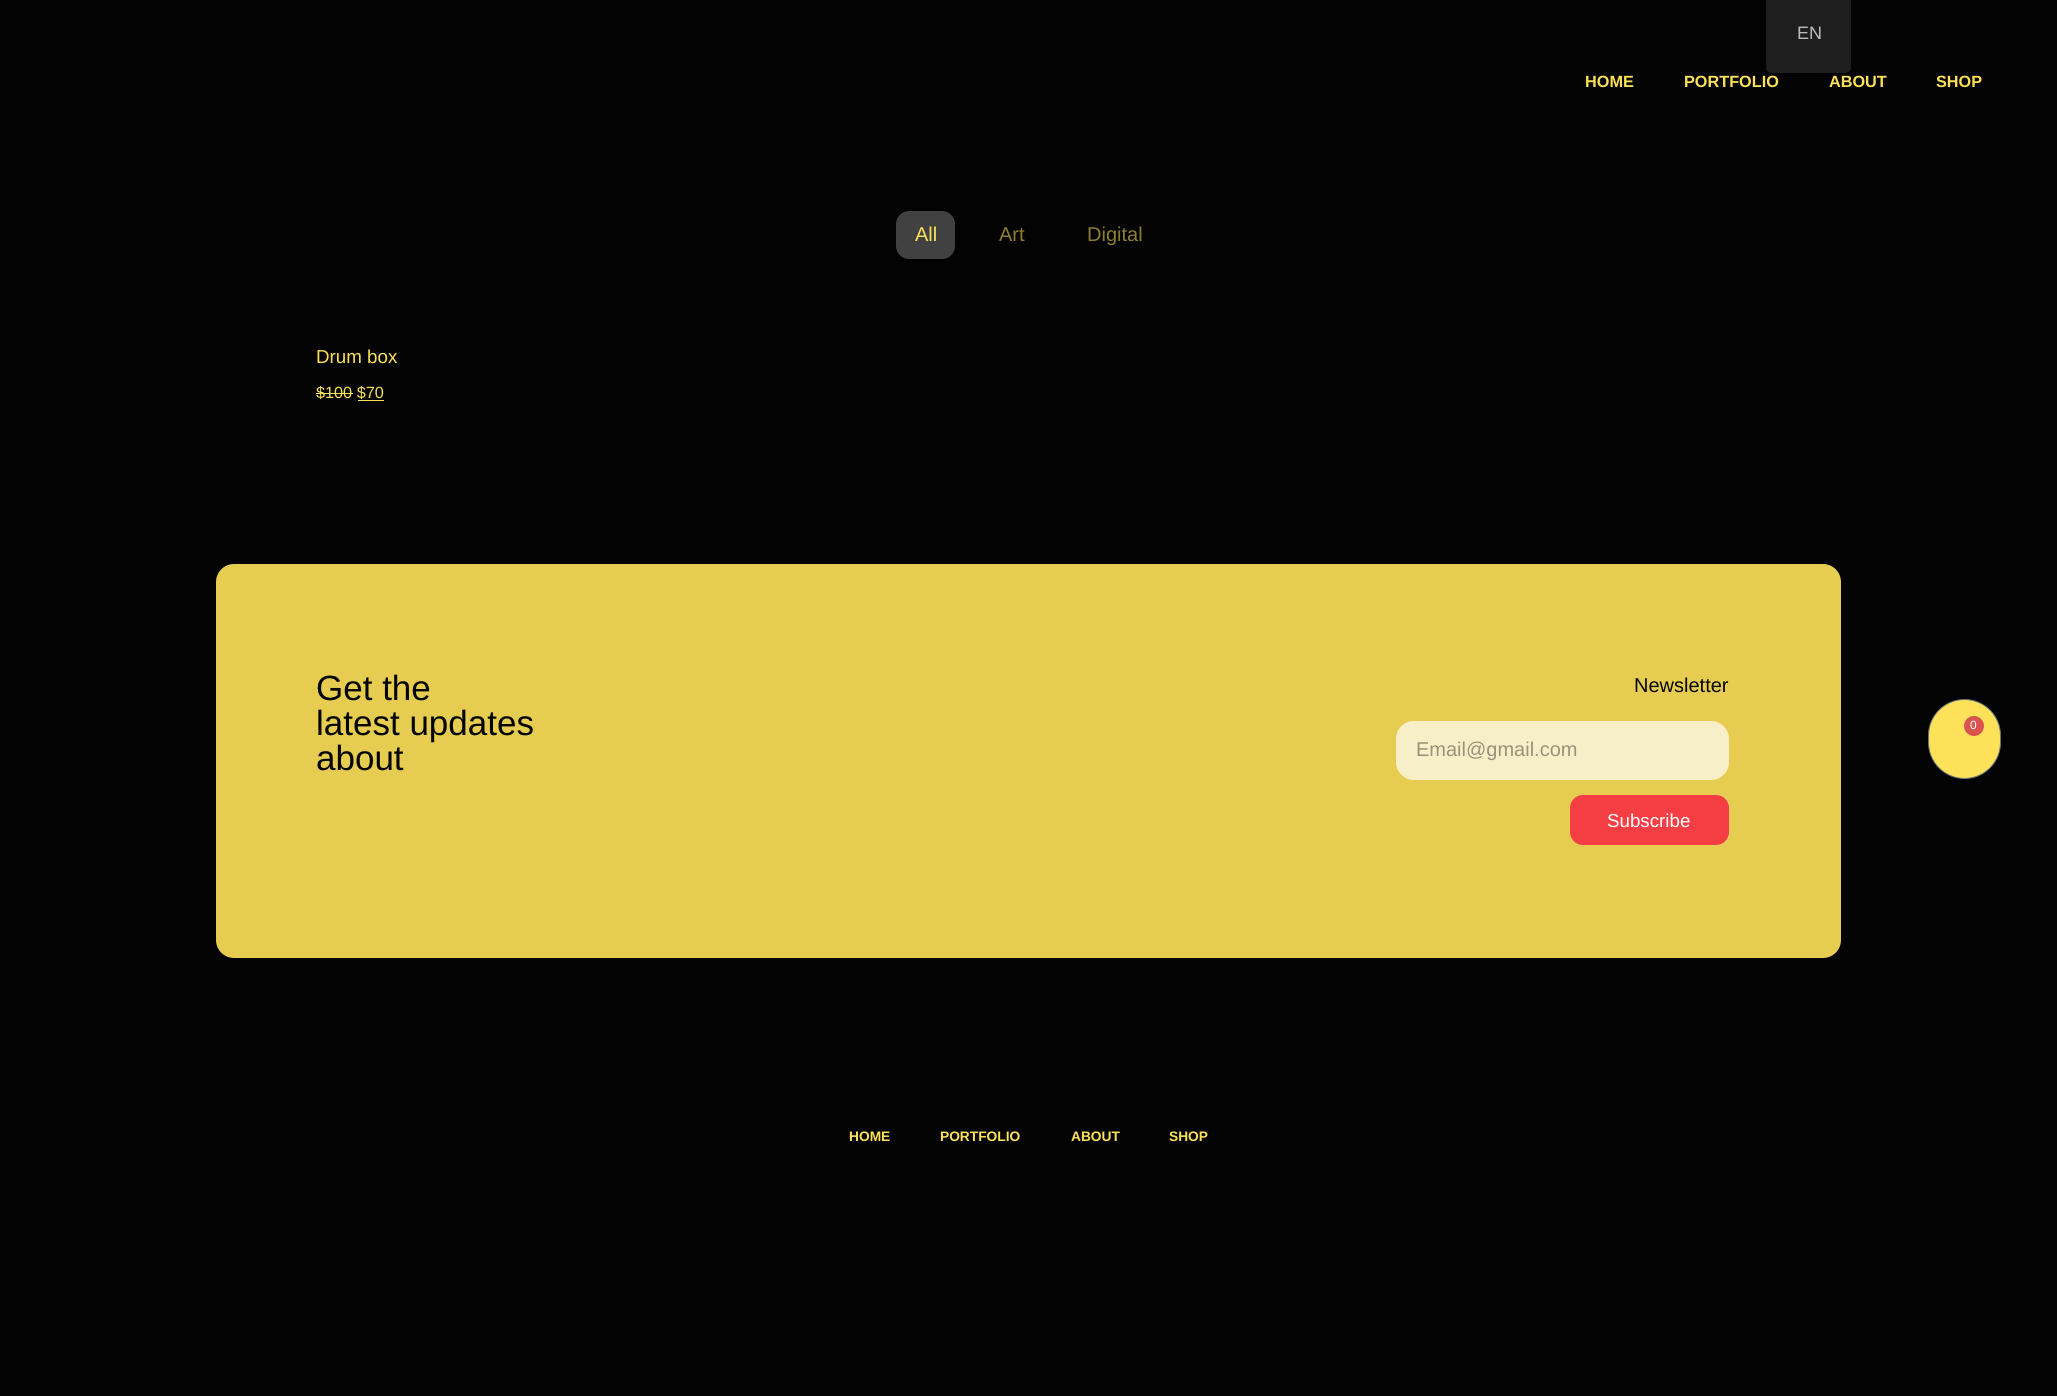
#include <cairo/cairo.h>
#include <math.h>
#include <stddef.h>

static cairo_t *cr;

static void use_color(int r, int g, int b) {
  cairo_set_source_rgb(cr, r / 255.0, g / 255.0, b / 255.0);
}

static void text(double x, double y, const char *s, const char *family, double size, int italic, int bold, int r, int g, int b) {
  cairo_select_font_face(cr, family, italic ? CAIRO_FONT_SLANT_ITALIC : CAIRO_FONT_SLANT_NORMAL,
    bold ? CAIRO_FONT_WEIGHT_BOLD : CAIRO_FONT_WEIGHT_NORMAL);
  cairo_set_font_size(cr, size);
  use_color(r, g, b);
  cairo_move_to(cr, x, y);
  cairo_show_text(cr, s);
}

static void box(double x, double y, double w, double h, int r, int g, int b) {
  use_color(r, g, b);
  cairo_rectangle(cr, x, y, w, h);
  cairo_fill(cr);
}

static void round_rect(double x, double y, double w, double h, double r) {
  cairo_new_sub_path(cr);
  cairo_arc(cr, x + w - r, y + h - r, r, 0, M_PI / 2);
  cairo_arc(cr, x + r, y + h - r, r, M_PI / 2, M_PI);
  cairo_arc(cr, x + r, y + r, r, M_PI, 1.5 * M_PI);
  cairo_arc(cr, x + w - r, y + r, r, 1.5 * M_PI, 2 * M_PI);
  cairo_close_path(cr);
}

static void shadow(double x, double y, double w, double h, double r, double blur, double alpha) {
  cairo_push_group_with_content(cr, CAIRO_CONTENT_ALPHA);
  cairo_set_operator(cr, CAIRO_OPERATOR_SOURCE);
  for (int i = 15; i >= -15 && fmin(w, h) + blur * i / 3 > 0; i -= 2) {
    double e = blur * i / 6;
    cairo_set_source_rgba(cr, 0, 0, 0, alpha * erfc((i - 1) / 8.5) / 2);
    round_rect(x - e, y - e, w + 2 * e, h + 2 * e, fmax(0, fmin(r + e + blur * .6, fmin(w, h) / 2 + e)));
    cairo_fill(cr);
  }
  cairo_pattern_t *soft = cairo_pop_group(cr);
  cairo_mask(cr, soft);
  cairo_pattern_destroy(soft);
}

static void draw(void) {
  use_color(3, 3, 3);
  cairo_paint(cr);
  use_color(0, 0, 0);
  shadow(1766, 0, 85, 73, 6, 5, 0.25);
  use_color(30, 30, 30);
  cairo_new_path(cr);
  cairo_move_to(cr, 1766, 0);
  cairo_line_to(cr, 1851, 0);
  cairo_line_to(cr, 1851, 67);
  cairo_curve_to(cr, 1851, 70.5, 1848.5, 73, 1845, 73);
  cairo_line_to(cr, 1772, 73);
  cairo_curve_to(cr, 1768.5, 73, 1766, 70.5, 1766, 67);
  cairo_close_path(cr);
  cairo_fill(cr);
  use_color(65, 65, 65);
  round_rect(896, 211, 59, 48, 13);
  cairo_fill(cr);
  box(316, 393, 37, 1, 252, 225, 89);
  box(358, 400, 26, 1, 252, 225, 89);
  round_rect(1928.5, 699.5, 72, 79, 36);
  cairo_fill_preserve(cr);
  use_color(105, 114, 125);
  cairo_set_line_width(cr, 1);
  cairo_stroke(cr);
  use_color(217, 83, 79);
  cairo_arc(cr, 1974, 726, 10, 0, 2 * M_PI);
  cairo_fill(cr);
  use_color(230, 205, 81);
  round_rect(216, 564, 1625, 394, 18);
  cairo_fill(cr);
  use_color(247, 239, 199);
  round_rect(1396, 721, 333, 59, 18);
  cairo_fill(cr);
  use_color(245, 61, 68);
  round_rect(1570, 795, 159, 50, 13);
  cairo_fill(cr);
  text(1797, 39, "EN", "Liberation Sans", 18, 0, 0, 189, 189, 189);
  text(1585, 87, "HOME", "Liberation Sans", 16.25, 0, 1, 252, 225, 89);
  text(1684, 87, "PORTFOLIO", "Liberation Sans", 16.25, 0, 1, 252, 225, 89);
  text(1829, 87, "ABOUT", "Liberation Sans", 16.25, 0, 1, 252, 225, 89);
  text(1936, 87, "SHOP", "Liberation Sans", 16.25, 0, 1, 252, 225, 89);
  text(915, 241, "All", "Liberation Sans", 20, 0, 0, 252, 225, 89);
  text(999, 241, "Art", "Liberation Sans", 20, 0, 0, 140, 125, 50);
  text(1087, 241, "Digital", "Liberation Sans", 20, 0, 0, 140, 125, 50);
  text(316, 363, "Drum box", "Liberation Sans", 18.75, 0, 0, 252, 225, 89);
  text(316, 398, "$100 $70", "Liberation Sans", 16.25, 0, 0, 252, 225, 89);
  text(1970, 729, "0", "Liberation Sans", 12, 0, 0, 255, 255, 255);
  text(316, 700, "Get the", "Liberation Sans", 35, 0, 0, 3, 3, 3);
  text(316, 735, "latest updates", "Liberation Sans", 35, 0, 0, 3, 3, 3);
  text(316, 770, "about", "Liberation Sans", 35, 0, 0, 3, 3, 3);
  text(1634, 692, "Newsletter", "Liberation Sans", 20, 0, 0, 3, 3, 3);
  text(1416, 756, "Email@gmail.com", "Liberation Sans", 20, 0, 0, 152, 147, 122);
  text(1607, 827, "Subscribe", "Liberation Sans", 18.75, 0, 0, 255, 255, 255);
  text(849, 1141, "HOME", "Liberation Sans", 13.75, 0, 1, 252, 225, 89);
  text(940, 1141, "PORTFOLIO", "Liberation Sans", 13.75, 0, 1, 252, 225, 89);
  text(1071, 1141, "ABOUT", "Liberation Sans", 13.75, 0, 1, 252, 225, 89);
  text(1169, 1141, "SHOP", "Liberation Sans", 13.75, 0, 1, 252, 225, 89);
}

int main(void) {
  cairo_surface_t *surface = cairo_image_surface_create(CAIRO_FORMAT_RGB24, 2057, 1396);
  cr = cairo_create(surface);
  cairo_font_options_t *options = cairo_font_options_create();
  cairo_font_options_set_hint_metrics(options, CAIRO_HINT_METRICS_OFF);
  cairo_font_options_set_hint_style(options, CAIRO_HINT_STYLE_NONE);
  cairo_set_font_options(cr, options);
  cairo_set_miter_limit(cr, 4);
  draw();
  cairo_surface_write_to_png(surface, "out.png");
  cairo_font_options_destroy(options);
  cairo_destroy(cr);
  cairo_surface_destroy(surface);
  return 0;
}
